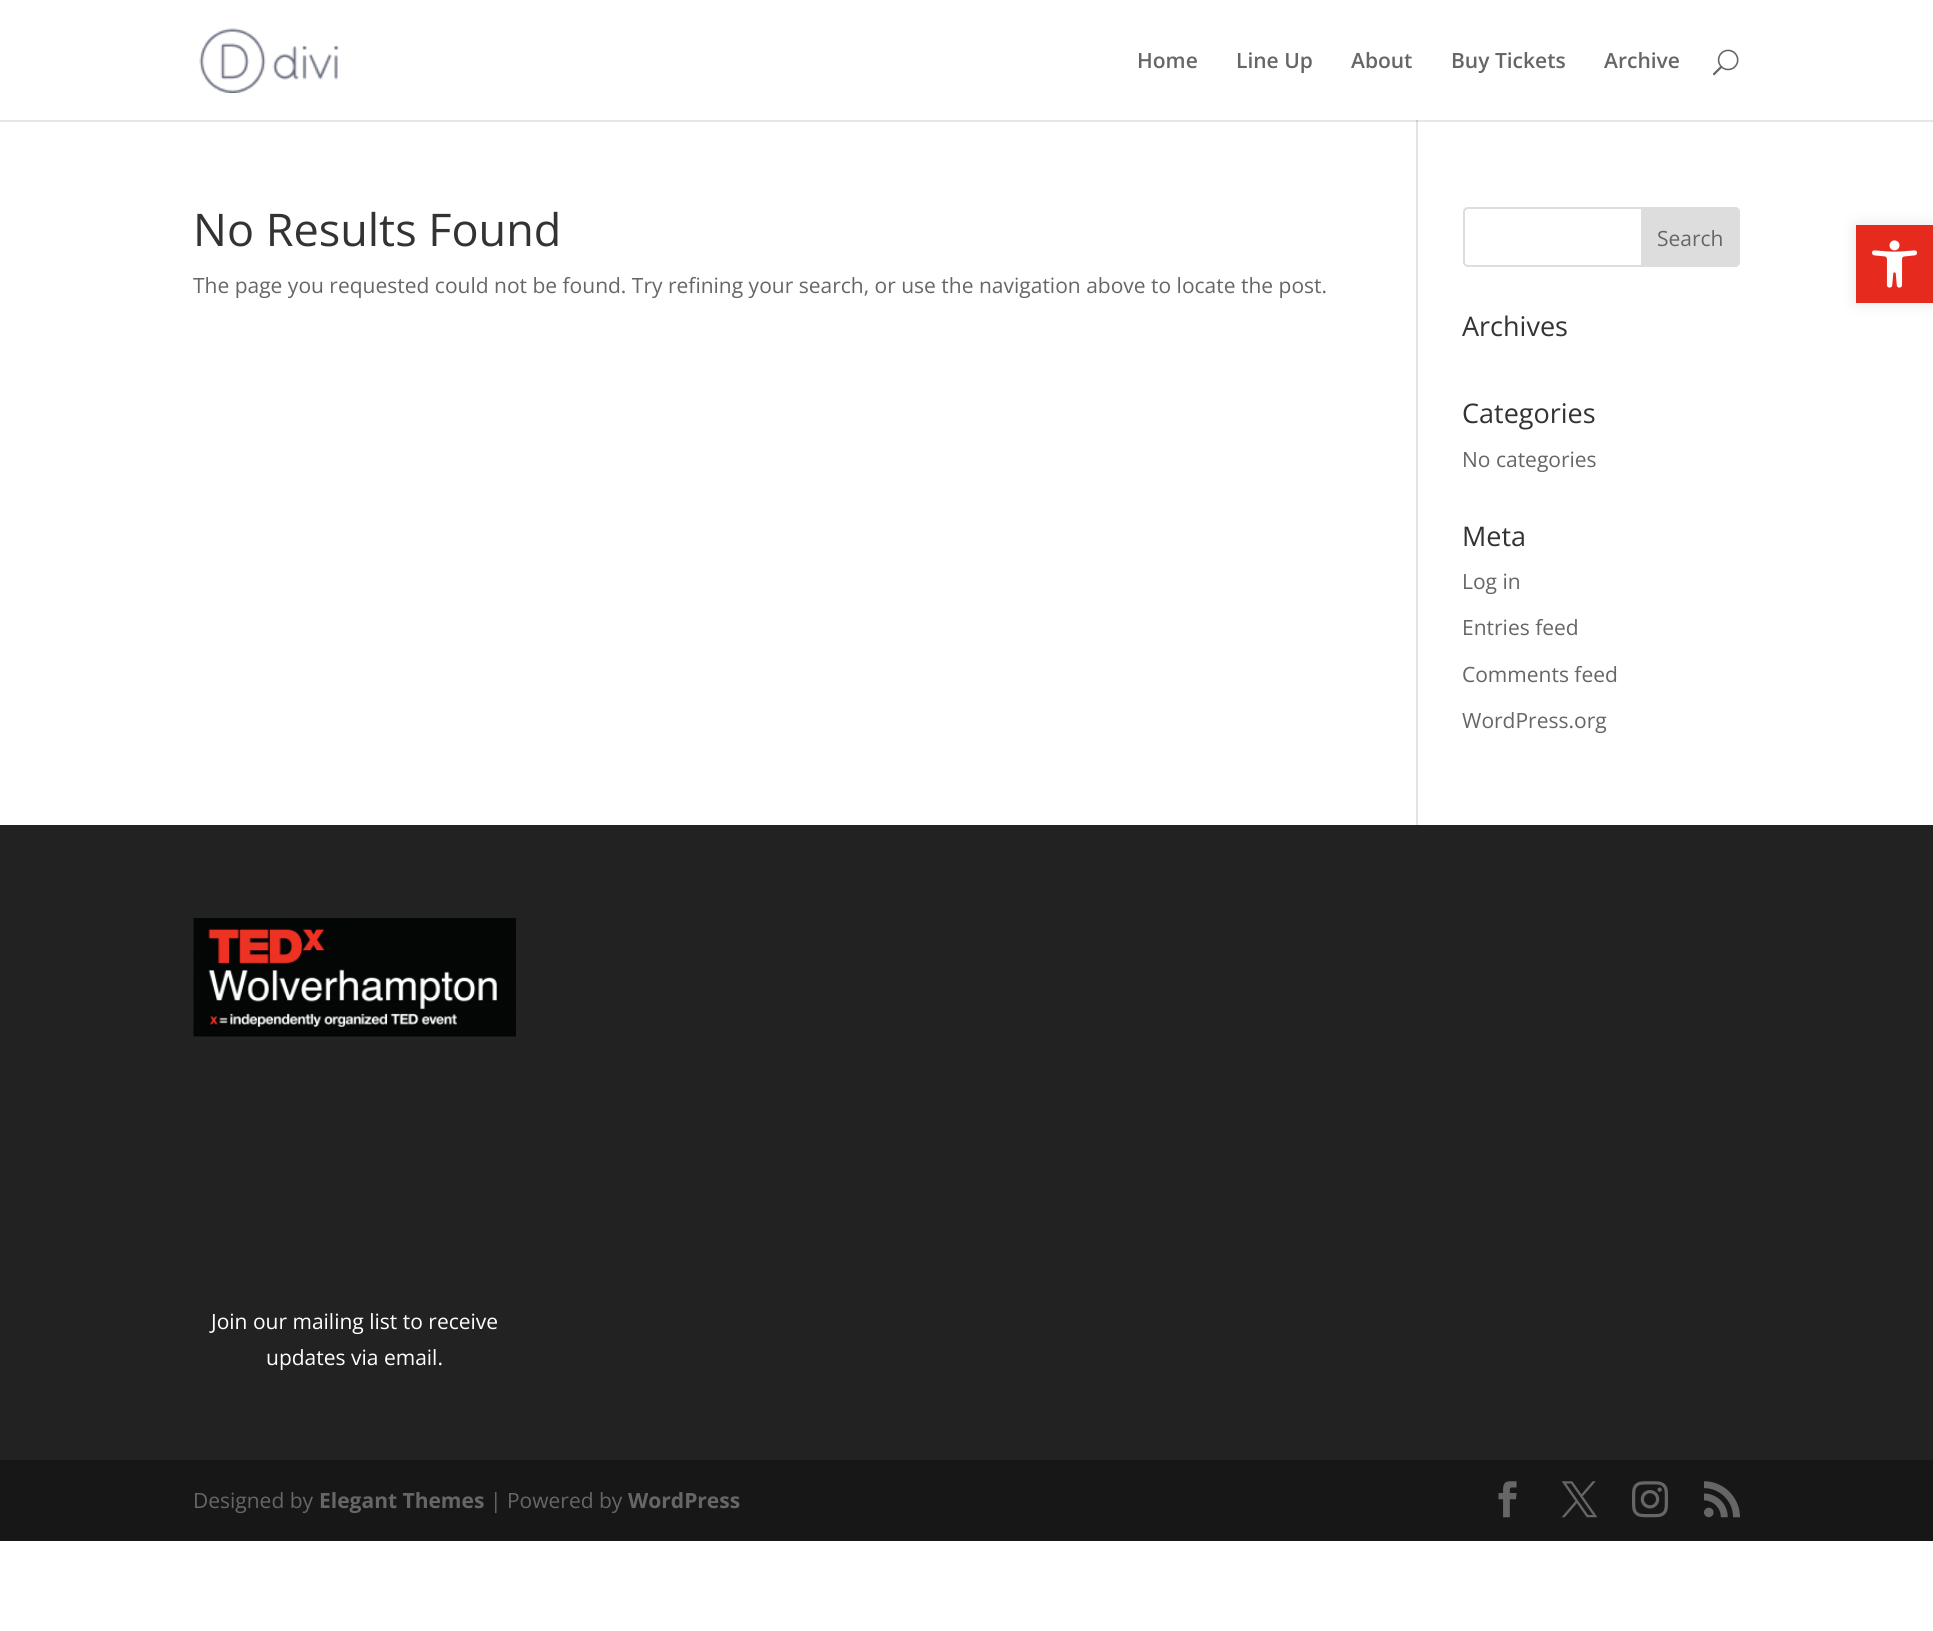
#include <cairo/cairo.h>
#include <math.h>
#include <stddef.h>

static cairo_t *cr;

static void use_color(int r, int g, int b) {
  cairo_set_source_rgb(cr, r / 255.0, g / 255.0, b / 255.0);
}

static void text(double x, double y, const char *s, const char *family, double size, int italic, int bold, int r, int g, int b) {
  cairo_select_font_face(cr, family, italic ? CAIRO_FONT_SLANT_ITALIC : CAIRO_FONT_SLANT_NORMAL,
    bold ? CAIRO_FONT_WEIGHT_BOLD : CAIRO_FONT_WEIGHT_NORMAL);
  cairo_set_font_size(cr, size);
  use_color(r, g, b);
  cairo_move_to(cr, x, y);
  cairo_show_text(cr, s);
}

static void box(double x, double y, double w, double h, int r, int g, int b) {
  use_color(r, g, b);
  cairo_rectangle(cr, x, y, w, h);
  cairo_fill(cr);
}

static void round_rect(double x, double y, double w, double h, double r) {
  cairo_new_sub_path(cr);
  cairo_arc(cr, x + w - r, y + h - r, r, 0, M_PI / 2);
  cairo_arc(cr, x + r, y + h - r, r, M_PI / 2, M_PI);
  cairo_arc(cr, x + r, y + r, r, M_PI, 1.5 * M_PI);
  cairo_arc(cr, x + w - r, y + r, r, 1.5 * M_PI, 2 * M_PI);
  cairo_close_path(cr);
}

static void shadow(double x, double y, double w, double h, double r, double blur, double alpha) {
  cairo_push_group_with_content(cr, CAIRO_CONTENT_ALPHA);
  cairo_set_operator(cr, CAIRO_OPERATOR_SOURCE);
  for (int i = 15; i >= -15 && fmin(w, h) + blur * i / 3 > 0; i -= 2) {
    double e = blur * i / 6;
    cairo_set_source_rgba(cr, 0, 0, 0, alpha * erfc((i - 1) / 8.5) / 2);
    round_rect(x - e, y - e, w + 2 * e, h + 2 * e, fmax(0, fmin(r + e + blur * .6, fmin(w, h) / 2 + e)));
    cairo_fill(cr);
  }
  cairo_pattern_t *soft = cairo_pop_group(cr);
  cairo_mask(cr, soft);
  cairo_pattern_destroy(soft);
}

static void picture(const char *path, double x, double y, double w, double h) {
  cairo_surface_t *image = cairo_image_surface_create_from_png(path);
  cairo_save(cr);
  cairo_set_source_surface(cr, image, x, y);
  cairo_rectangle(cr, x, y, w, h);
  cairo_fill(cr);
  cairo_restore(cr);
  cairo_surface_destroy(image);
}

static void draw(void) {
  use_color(255, 255, 255);
  cairo_paint(cr);
  box(1416, 120, 2, 705, 226, 226, 226);
  cairo_set_source_rgba(cr, 0, 0, 0, 0.1);
  cairo_new_path(cr);
  cairo_move_to(cr, 0, 120);
  cairo_line_to(cr, 0, 122);
  cairo_line_to(cr, 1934, 122);
  cairo_line_to(cr, 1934, 2);
  cairo_line_to(cr, 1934, 120);
  cairo_close_path(cr);
  cairo_fill(cr);
  picture("img_01.png", 199, 28, 140, 65);
  picture("img_02.png", 1712, 49, 27, 27);
  round_rect(1464, 208, 275, 58, 4);
  use_color(221, 221, 221);
  cairo_stroke(cr);
  cairo_new_path(cr);
  cairo_move_to(cr, 1642, 208);
  cairo_line_to(cr, 1735, 208);
  cairo_curve_to(cr, 1737, 208, 1739, 210, 1739, 212);
  cairo_line_to(cr, 1739, 262);
  cairo_curve_to(cr, 1739, 264, 1737, 266, 1735, 266);
  cairo_line_to(cr, 1642, 266);
  cairo_close_path(cr);
  cairo_fill_preserve(cr);
  cairo_stroke(cr);
  box(0, 825, 1933, 635, 34, 34, 34);
  picture("img_03.png", 193, 918, 323, 119);
  box(0, 1460, 1933, 81, 23, 23, 23);
  picture("img_04.png", 1498, 1481, 19, 37);
  picture("img_05.png", 1561, 1481, 37, 37);
  picture("img_06.png", 1632, 1481, 36, 37);
  picture("img_07.png", 1704, 1481, 36, 37);
  use_color(0, 0, 0);
  shadow(1856, 225, 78, 78, 0, 7.5, 0.1);
  box(1856, 225, 77, 78, 230, 43, 30);
  picture("img_08.png", 1872, 240, 46, 48);
  text(1137, 68, "Home", "Open Sans SemiBold", 21, 0, 0, 102, 102, 102);
  text(1236, 68, "Line Up", "Open Sans SemiBold", 21, 0, 0, 102, 102, 102);
  text(1351, 68, "About", "Open Sans SemiBold", 21, 0, 0, 102, 102, 102);
  text(1451, 68, "Buy Tickets", "Open Sans SemiBold", 21, 0, 0, 102, 102, 102);
  text(1604, 68, "Archive", "Open Sans SemiBold", 21, 0, 0, 102, 102, 102);
  text(193, 246, "No Results Found", "Open Sans", 45, 0, 0, 51, 51, 51);
  text(193, 293, "The page you requested could not be found. Try refining your search, or use the navigation above to locate the post.", "Open Sans", 21, 0, 0, 102, 102, 102);
  text(1657, 246, "Search", "Open Sans", 21, 0, 0, 102, 102, 102);
  text(1462, 336, "Archives", "Open Sans", 27, 0, 0, 51, 51, 51);
  text(1462, 423, "Categories", "Open Sans", 27, 0, 0, 51, 51, 51);
  text(1462, 467, "No categories", "Open Sans", 21, 0, 0, 102, 102, 102);
  text(1462, 546, "Meta", "Open Sans", 27, 0, 0, 51, 51, 51);
  text(1462, 589, "Log in", "Open Sans", 21, 0, 0, 102, 102, 102);
  text(1462, 635, "Entries feed", "Open Sans", 21, 0, 0, 102, 102, 102);
  text(1462, 682, "Comments feed", "Open Sans", 21, 0, 0, 102, 102, 102);
  text(1462, 728, "WordPress.org", "Open Sans", 21, 0, 0, 102, 102, 102);
  text(211, 1329, "Join our mailing list to receive", "Open Sans", 21, 0, 0, 255, 255, 255);
  text(266, 1365, "updates via email.", "Open Sans", 21, 0, 0, 255, 255, 255);
  text(193, 1508, "Designed by", "Open Sans", 21, 0, 0, 102, 102, 102);
  text(319, 1508, "Elegant Themes", "Open Sans", 21, 0, 1, 102, 102, 102);
  text(490, 1508, "| Powered by", "Open Sans", 21, 0, 0, 102, 102, 102);
  text(628, 1508, "WordPress", "Open Sans", 21, 0, 1, 102, 102, 102);
}

int main(void) {
  cairo_surface_t *surface = cairo_image_surface_create(CAIRO_FORMAT_RGB24, 1933, 1631);
  cr = cairo_create(surface);
  cairo_font_options_t *options = cairo_font_options_create();
  cairo_font_options_set_hint_metrics(options, CAIRO_HINT_METRICS_OFF);
  cairo_font_options_set_hint_style(options, CAIRO_HINT_STYLE_NONE);
  cairo_set_font_options(cr, options);
  cairo_set_miter_limit(cr, 4);
  draw();
  cairo_surface_write_to_png(surface, "out.png");
  cairo_font_options_destroy(options);
  cairo_destroy(cr);
  cairo_surface_destroy(surface);
  return 0;
}
